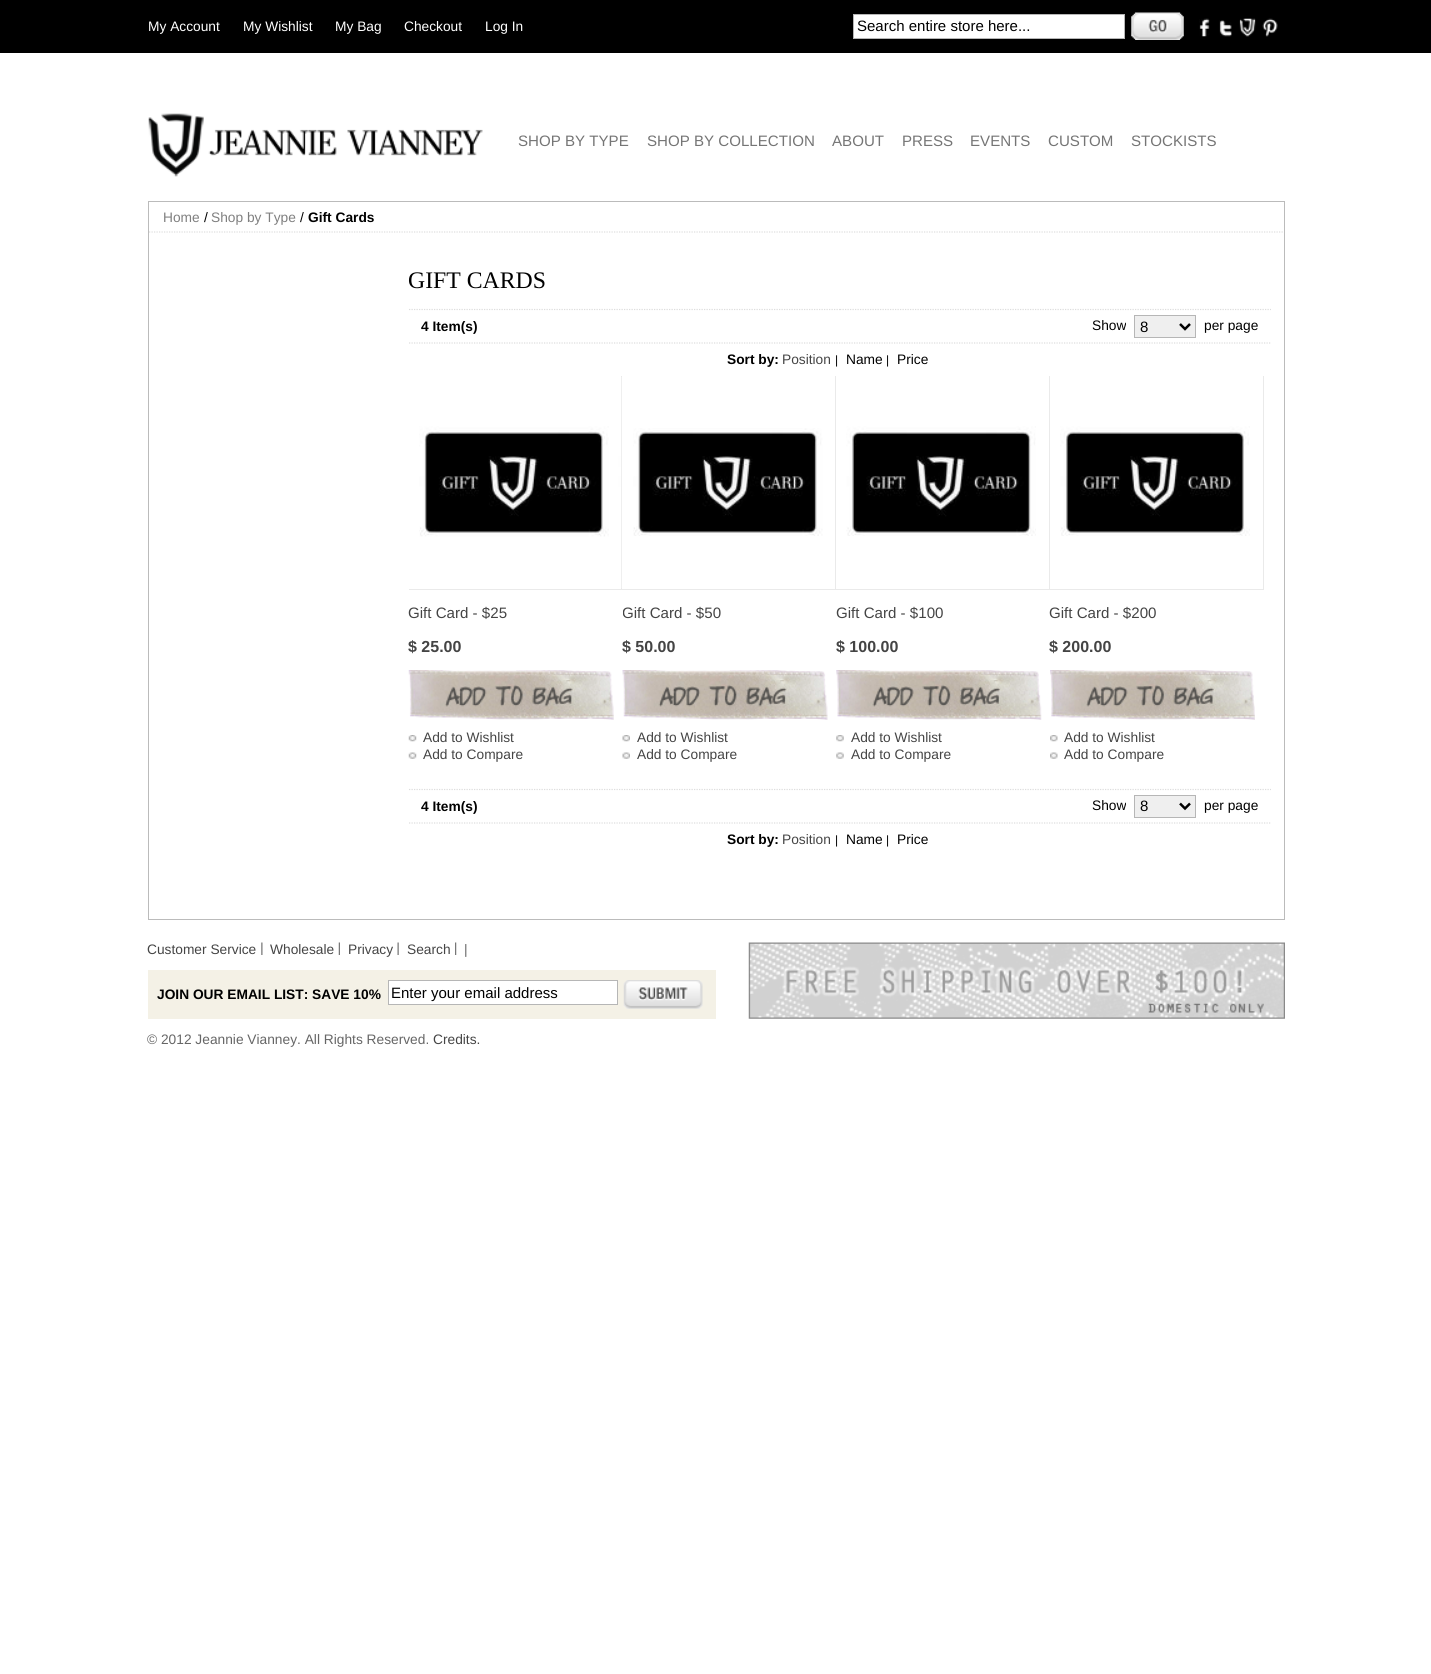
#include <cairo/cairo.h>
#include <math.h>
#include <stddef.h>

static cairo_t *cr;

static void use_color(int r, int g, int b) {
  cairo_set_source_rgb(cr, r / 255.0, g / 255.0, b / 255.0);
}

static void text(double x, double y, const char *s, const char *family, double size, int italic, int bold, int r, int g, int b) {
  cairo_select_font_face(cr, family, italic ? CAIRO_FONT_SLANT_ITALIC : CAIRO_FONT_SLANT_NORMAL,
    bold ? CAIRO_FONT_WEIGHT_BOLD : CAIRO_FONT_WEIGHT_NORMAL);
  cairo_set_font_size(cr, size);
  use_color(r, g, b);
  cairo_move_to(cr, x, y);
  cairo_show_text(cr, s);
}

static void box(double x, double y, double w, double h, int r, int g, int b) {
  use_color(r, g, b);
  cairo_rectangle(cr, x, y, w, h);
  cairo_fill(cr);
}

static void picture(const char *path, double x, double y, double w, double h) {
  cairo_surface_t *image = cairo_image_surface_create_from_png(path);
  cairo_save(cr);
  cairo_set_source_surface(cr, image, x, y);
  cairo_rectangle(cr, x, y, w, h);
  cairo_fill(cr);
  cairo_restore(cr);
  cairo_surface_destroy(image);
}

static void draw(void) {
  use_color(255, 255, 255);
  cairo_paint(cr);
  box(0, 0, 1431, 53, 0, 0, 0);
  use_color(255, 255, 255);
  cairo_rectangle(cr, 853.5, 14.5, 271, 24);
  cairo_fill_preserve(cr);
  use_color(182, 182, 182);
  cairo_set_line_width(cr, 1);
  cairo_stroke(cr);
  picture("img_01.png", 1131, 12, 53, 28);
  picture("img_02.png", 1199, 18, 11, 19);
  picture("img_03.png", 1219, 20, 13, 17);
  picture("img_04.png", 1239, 18, 17, 19);
  picture("img_05.png", 1262, 18, 16, 19);
  picture("img_06.png", 148, 113, 335, 64);
  cairo_rectangle(cr, 148.5, 201.5, 1136, 718);
  use_color(187, 187, 187);
  cairo_stroke(cr);
  cairo_new_path(cr);
  cairo_move_to(cr, 149, 232);
  cairo_line_to(cr, 1284, 232);
  use_color(222, 222, 222);
  cairo_set_line_width(cr, 1.2);
  cairo_set_dash(cr, (double[]){1.25, 1.25}, 2, 0);
  cairo_stroke(cr);
  cairo_new_path(cr);
  cairo_move_to(cr, 409, 309.5);
  cairo_line_to(cr, 840, 309.5);
  use_color(221, 221, 221);
  cairo_stroke(cr);
  cairo_new_path(cr);
  cairo_move_to(cr, 840, 309.5);
  cairo_line_to(cr, 1271, 309.5);
  cairo_stroke(cr);
  use_color(239, 239, 239);
  cairo_rectangle(cr, 1134.5, 315.5, 61, 22);
  cairo_fill_preserve(cr);
  use_color(182, 182, 182);
  cairo_set_line_width(cr, 1);
  cairo_set_dash(cr, NULL, 0, 0);
  cairo_stroke(cr);
  cairo_new_path(cr);
  cairo_move_to(cr, 1180, 324);
  cairo_line_to(cr, 1185, 329);
  cairo_line_to(cr, 1190, 324);
  use_color(0, 0, 0);
  cairo_set_line_width(cr, 2.5);
  cairo_stroke(cr);
  cairo_new_path(cr);
  cairo_move_to(cr, 409, 343);
  cairo_line_to(cr, 714, 343);
  use_color(221, 221, 221);
  cairo_set_line_width(cr, 1.2);
  cairo_set_dash(cr, (double[]){1.25, 1.25}, 2, 0);
  cairo_stroke(cr);
  cairo_new_path(cr);
  cairo_move_to(cr, 714, 343);
  cairo_line_to(cr, 1271, 343);
  cairo_stroke(cr);
  box(621, 376, 1, 214, 234, 234, 234);
  box(409, 589, 214, 1, 234, 234, 234);
  picture("img_07.png", 419, 377, 203, 211);
  picture("img_08.png", 408, 670, 206, 50);
  picture("img_09.png", 408, 735, 9, 7);
  picture("img_10.png", 408, 752, 9, 7);
  box(835, 376, 1, 214, 234, 234, 234);
  box(623, 589, 213, 1, 234, 234, 234);
  picture("img_11.png", 633, 428, 190, 108);
  picture("img_12.png", 622, 670, 206, 50);
  picture("img_13.png", 622, 735, 8, 7);
  picture("img_14.png", 622, 752, 8, 7);
  box(1049, 376, 1, 214, 234, 234, 234);
  box(836, 589, 214, 1, 234, 234, 234);
  picture("img_15.png", 846, 426, 190, 110);
  picture("img_16.png", 836, 670, 206, 50);
  picture("img_17.png", 836, 735, 8, 7);
  picture("img_18.png", 836, 752, 8, 7);
  box(1263, 376, 1, 214, 234, 234, 234);
  box(1050, 589, 214, 1, 234, 234, 234);
  picture("img_19.png", 1060, 426, 190, 110);
  picture("img_20.png", 1050, 670, 205, 50);
  picture("img_21.png", 1050, 735, 8, 7);
  picture("img_22.png", 1050, 752, 8, 7);
  cairo_new_path(cr);
  cairo_move_to(cr, 409, 789.5);
  cairo_line_to(cr, 840, 789.5);
  use_color(221, 221, 221);
  cairo_stroke(cr);
  cairo_new_path(cr);
  cairo_move_to(cr, 840, 789.5);
  cairo_line_to(cr, 1271, 789.5);
  cairo_stroke(cr);
  use_color(239, 239, 239);
  cairo_rectangle(cr, 1134.5, 795.5, 61, 22);
  cairo_fill_preserve(cr);
  use_color(182, 182, 182);
  cairo_set_line_width(cr, 1);
  cairo_set_dash(cr, NULL, 0, 0);
  cairo_stroke(cr);
  cairo_new_path(cr);
  cairo_move_to(cr, 1180, 803.5);
  cairo_line_to(cr, 1185, 808.5);
  cairo_line_to(cr, 1190, 803.5);
  use_color(0, 0, 0);
  cairo_set_line_width(cr, 2.5);
  cairo_stroke(cr);
  cairo_new_path(cr);
  cairo_move_to(cr, 409, 823);
  cairo_line_to(cr, 714, 823);
  use_color(221, 221, 221);
  cairo_set_line_width(cr, 1.2);
  cairo_set_dash(cr, (double[]){1.25, 1.25}, 2, 0);
  cairo_stroke(cr);
  cairo_new_path(cr);
  cairo_move_to(cr, 714, 823);
  cairo_line_to(cr, 1271, 823);
  cairo_stroke(cr);
  picture("img_23.png", 261, 942, 2, 13);
  picture("img_24.png", 338, 942, 2, 13);
  picture("img_25.png", 397, 942, 2, 13);
  picture("img_26.png", 455, 942, 2, 13);
  picture("img_27.png", 748, 942, 537, 77);
  box(148, 970, 568, 49, 244, 241, 230);
  use_color(255, 255, 255);
  cairo_rectangle(cr, 388.5, 980.5, 229, 24);
  cairo_fill_preserve(cr);
  use_color(182, 182, 182);
  cairo_set_line_width(cr, 1);
  cairo_set_dash(cr, NULL, 0, 0);
  cairo_stroke(cr);
  picture("img_28.png", 623, 980, 80, 29);
  text(148, 31, "My Account", "Liberation Sans", 13.75, 0, 0, 255, 255, 255);
  text(243, 31, "My Wishlist", "Liberation Sans", 13.75, 0, 0, 255, 255, 255);
  text(335, 31, "My Bag", "Liberation Sans", 13.75, 0, 0, 255, 255, 255);
  text(404, 31, "Checkout", "Liberation Sans", 13.75, 0, 0, 255, 255, 255);
  text(485, 31, "Log In", "Liberation Sans", 13.75, 0, 0, 255, 255, 255);
  text(857, 31, "Search entire store here...", "Liberation Sans", 15, 0, 0, 0, 0, 0);
  text(518, 146, "SHOP BY TYPE", "Liberation Sans", 15.1, 0, 0, 117, 117, 117);
  text(647, 146, "SHOP BY COLLECTION", "Liberation Sans", 15.1, 0, 0, 117, 117, 117);
  text(832, 146, "ABOUT", "Liberation Sans", 15.1, 0, 0, 117, 117, 117);
  text(902, 146, "PRESS", "Liberation Sans", 15.1, 0, 0, 117, 117, 117);
  text(970, 146, "EVENTS", "Liberation Sans", 15.1, 0, 0, 117, 117, 117);
  text(1048, 146, "CUSTOM", "Liberation Sans", 15.1, 0, 0, 117, 117, 117);
  text(1131, 146, "STOCKISTS", "Liberation Sans", 15.1, 0, 0, 117, 117, 117);
  text(163, 222, "Home", "Liberation Sans", 13.75, 0, 0, 127, 127, 127);
  text(204, 222, "/", "Liberation Sans", 13.75, 0, 0, 0, 0, 0);
  text(211, 222, "Shop by Type", "Liberation Sans", 13.75, 0, 0, 127, 127, 127);
  text(300, 222, "/", "Liberation Sans", 13.75, 0, 0, 0, 0, 0);
  text(308, 222, "Gift Cards", "Liberation Sans", 13.75, 0, 1, 0, 0, 0);
  text(408, 288, "GIFT CARDS", "Liberation Serif", 23.75, 0, 0, 0, 0, 0);
  text(421, 331, "4 Item(s)", "Liberation Sans", 13.75, 0, 1, 0, 0, 0);
  text(1092, 330, "Show", "Liberation Sans", 13.75, 0, 0, 0, 0, 0);
  text(1140, 332, "8", "Liberation Sans", 15, 0, 0, 0, 0, 0);
  text(1204, 330, "per page", "Liberation Sans", 13.75, 0, 0, 0, 0, 0);
  text(727, 364, "Sort by:", "Liberation Sans", 13.75, 0, 1, 0, 0, 0);
  text(782, 364, "Position", "Liberation Sans", 13.75, 0, 0, 68, 68, 68);
  text(835, 364, "|", "Liberation Sans", 12, 0, 0, 0, 0, 0);
  text(846, 364, "Name", "Liberation Sans", 13.75, 0, 0, 0, 0, 0);
  text(886, 364, "|", "Liberation Sans", 12, 0, 0, 0, 0, 0);
  text(897, 364, "Price", "Liberation Sans", 13.75, 0, 0, 0, 0, 0);
  text(408, 618, "Gift Card - $25", "Liberation Sans", 15.1, 0, 0, 68, 68, 68);
  text(408, 652, "$ 25.00", "Liberation Sans", 16, 0, 1, 68, 68, 68);
  text(423, 742, "Add to Wishlist", "Liberation Sans", 13.75, 0, 0, 68, 68, 68);
  text(423, 759, "Add to Compare", "Liberation Sans", 13.75, 0, 0, 68, 68, 68);
  cairo_save(cr);
  cairo_rectangle(cr, 623, 603, 211, 20);
  cairo_clip(cr);
  text(622, 618, "Gift Card - $50", "Liberation Sans", 15.1, 0, 0, 68, 68, 68);
  cairo_restore(cr);
  text(622, 652, "$ 50.00", "Liberation Sans", 16, 0, 1, 68, 68, 68);
  text(637, 742, "Add to Wishlist", "Liberation Sans", 13.75, 0, 0, 68, 68, 68);
  text(637, 759, "Add to Compare", "Liberation Sans", 13.75, 0, 0, 68, 68, 68);
  text(836, 618, "Gift Card - $100", "Liberation Sans", 15.1, 0, 0, 68, 68, 68);
  text(836, 652, "$ 100.00", "Liberation Sans", 16, 0, 1, 68, 68, 68);
  text(851, 742, "Add to Wishlist", "Liberation Sans", 13.75, 0, 0, 68, 68, 68);
  text(851, 759, "Add to Compare", "Liberation Sans", 13.75, 0, 0, 68, 68, 68);
  text(1049, 618, "Gift Card - $200", "Liberation Sans", 15.1, 0, 0, 68, 68, 68);
  text(1049, 652, "$ 200.00", "Liberation Sans", 16, 0, 1, 68, 68, 68);
  text(1064, 742, "Add to Wishlist", "Liberation Sans", 13.75, 0, 0, 68, 68, 68);
  text(1064, 759, "Add to Compare", "Liberation Sans", 13.75, 0, 0, 68, 68, 68);
  text(421, 811, "4 Item(s)", "Liberation Sans", 13.75, 0, 1, 0, 0, 0);
  text(1092, 810, "Show", "Liberation Sans", 13.75, 0, 0, 0, 0, 0);
  text(1140, 811, "8", "Liberation Sans", 15, 0, 0, 0, 0, 0);
  text(1204, 810, "per page", "Liberation Sans", 13.75, 0, 0, 0, 0, 0);
  text(727, 844, "Sort by:", "Liberation Sans", 13.75, 0, 1, 0, 0, 0);
  text(782, 844, "Position", "Liberation Sans", 13.75, 0, 0, 68, 68, 68);
  text(835, 844, "|", "Liberation Sans", 12, 0, 0, 0, 0, 0);
  text(846, 844, "Name", "Liberation Sans", 13.75, 0, 0, 0, 0, 0);
  text(886, 844, "|", "Liberation Sans", 12, 0, 0, 0, 0, 0);
  text(897, 844, "Price", "Liberation Sans", 13.75, 0, 0, 0, 0, 0);
  text(147, 954, "Customer Service", "Liberation Sans", 13.75, 0, 0, 68, 68, 68);
  text(270, 954, "Wholesale", "Liberation Sans", 13.75, 0, 0, 68, 68, 68);
  text(348, 954, "Privacy", "Liberation Sans", 13.75, 0, 0, 68, 68, 68);
  text(407, 954, "Search", "Liberation Sans", 13.75, 0, 0, 68, 68, 68);
  text(464, 954, "|", "Liberation Sans", 13.75, 0, 0, 102, 102, 102);
  text(157, 999, "JOIN OUR EMAIL LIST: SAVE 10%", "Liberation Sans", 13.75, 0, 1, 0, 0, 0);
  text(391, 998, "Enter your email address", "Liberation Sans", 15, 0, 0, 0, 0, 0);
  text(147, 1044, "© 2012 Jeannie Vianney. All Rights Reserved.", "Liberation Sans", 13.75, 0, 0, 102, 102, 102);
  text(433, 1044, "Credits.", "Liberation Sans", 13.75, 0, 0, 68, 68, 68);
}

int main(void) {
  cairo_surface_t *surface = cairo_image_surface_create(CAIRO_FORMAT_RGB24, 1431, 1674);
  cr = cairo_create(surface);
  cairo_font_options_t *options = cairo_font_options_create();
  cairo_font_options_set_hint_metrics(options, CAIRO_HINT_METRICS_OFF);
  cairo_font_options_set_hint_style(options, CAIRO_HINT_STYLE_NONE);
  cairo_set_font_options(cr, options);
  cairo_set_miter_limit(cr, 4);
  draw();
  cairo_surface_write_to_png(surface, "out.png");
  cairo_font_options_destroy(options);
  cairo_destroy(cr);
  cairo_surface_destroy(surface);
  return 0;
}
